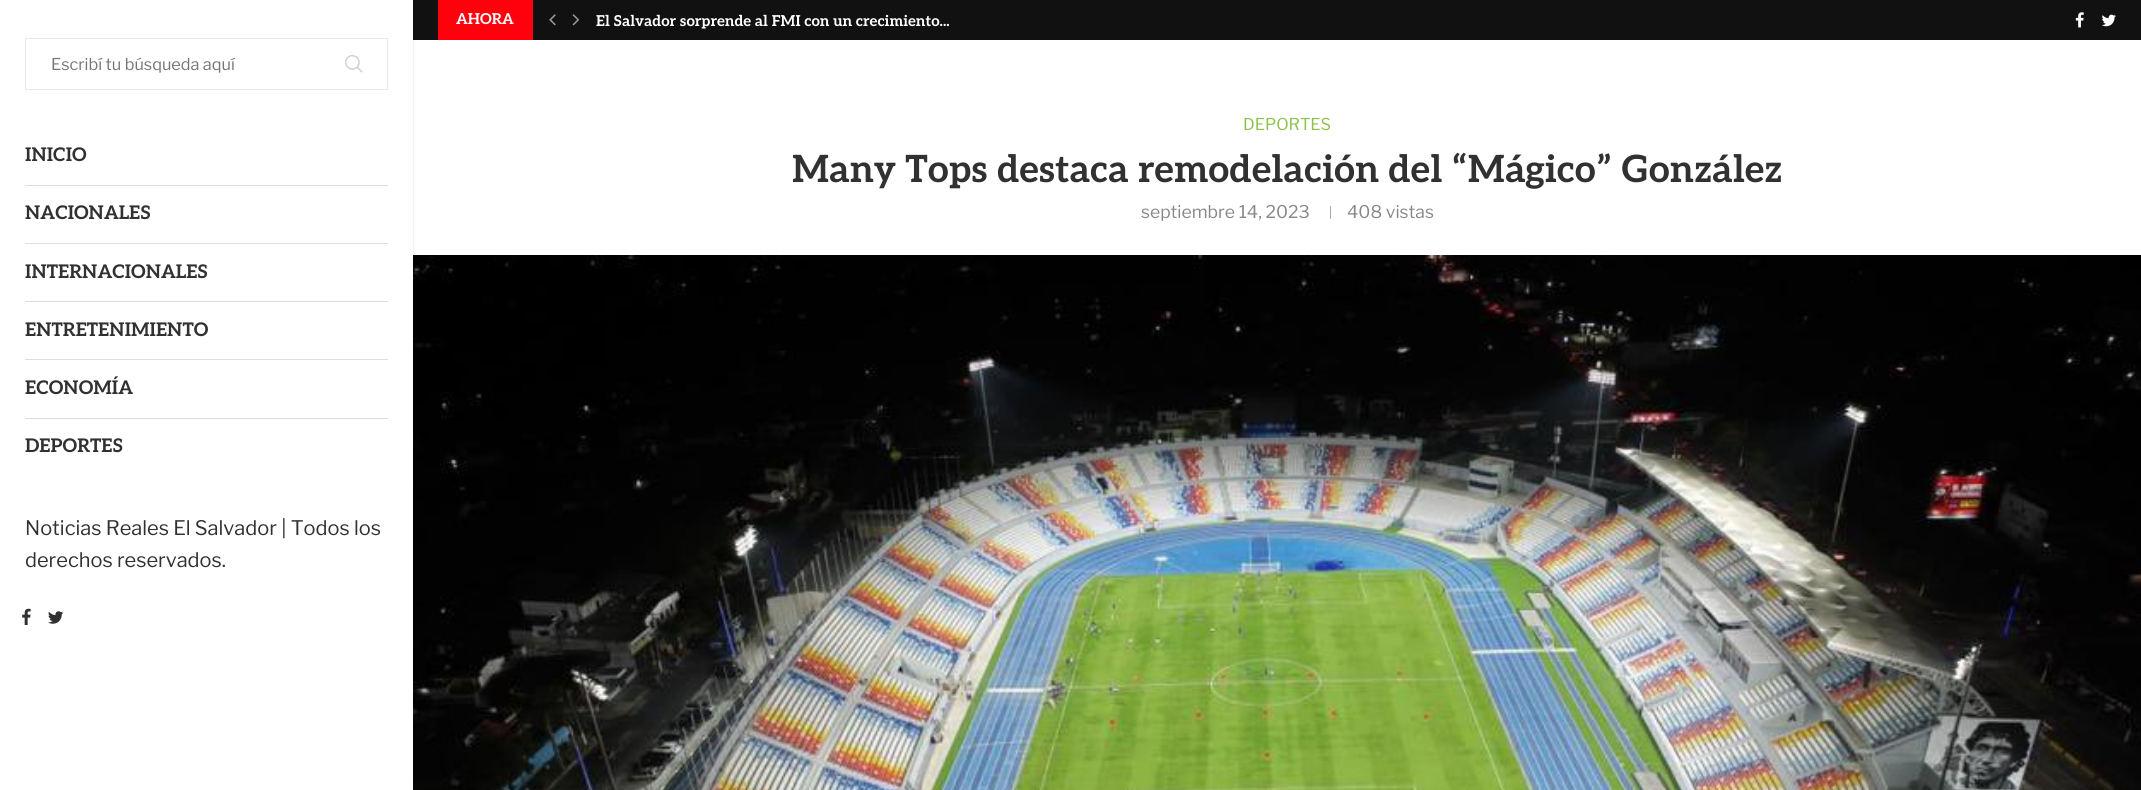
#include <cairo/cairo.h>
#include <math.h>
#include <stddef.h>

static cairo_t *cr;

static void use_color(int r, int g, int b) {
  cairo_set_source_rgb(cr, r / 255.0, g / 255.0, b / 255.0);
}

static void text(double x, double y, const char *s, const char *family, double size, int italic, int bold, int r, int g, int b) {
  cairo_select_font_face(cr, family, italic ? CAIRO_FONT_SLANT_ITALIC : CAIRO_FONT_SLANT_NORMAL,
    bold ? CAIRO_FONT_WEIGHT_BOLD : CAIRO_FONT_WEIGHT_NORMAL);
  cairo_set_font_size(cr, size);
  use_color(r, g, b);
  cairo_move_to(cr, x, y);
  cairo_show_text(cr, s);
}

static void box(double x, double y, double w, double h, int r, int g, int b) {
  use_color(r, g, b);
  cairo_rectangle(cr, x, y, w, h);
  cairo_fill(cr);
}

static void round_rect(double x, double y, double w, double h, double r) {
  cairo_new_sub_path(cr);
  cairo_arc(cr, x + w - r, y + h - r, r, 0, M_PI / 2);
  cairo_arc(cr, x + r, y + h - r, r, M_PI / 2, M_PI);
  cairo_arc(cr, x + r, y + r, r, M_PI, 1.5 * M_PI);
  cairo_arc(cr, x + w - r, y + r, r, 1.5 * M_PI, 2 * M_PI);
  cairo_close_path(cr);
}

static void shadow(double x, double y, double w, double h, double r, double blur, double alpha) {
  cairo_push_group_with_content(cr, CAIRO_CONTENT_ALPHA);
  cairo_set_operator(cr, CAIRO_OPERATOR_SOURCE);
  for (int i = 15; i >= -15 && fmin(w, h) + blur * i / 3 > 0; i -= 2) {
    double e = blur * i / 6;
    cairo_set_source_rgba(cr, 0, 0, 0, alpha * erfc((i - 1) / 8.5) / 2);
    round_rect(x - e, y - e, w + 2 * e, h + 2 * e, fmax(0, fmin(r + e + blur * .6, fmin(w, h) / 2 + e)));
    cairo_fill(cr);
  }
  cairo_pattern_t *soft = cairo_pop_group(cr);
  cairo_mask(cr, soft);
  cairo_pattern_destroy(soft);
}

static void picture(const char *path, double x, double y, double w, double h) {
  cairo_surface_t *image = cairo_image_surface_create_from_png(path);
  cairo_save(cr);
  cairo_set_source_surface(cr, image, x, y);
  cairo_rectangle(cr, x, y, w, h);
  cairo_fill(cr);
  cairo_restore(cr);
  cairo_surface_destroy(image);
}

static void draw(void) {
  use_color(255, 255, 255);
  cairo_paint(cr);
  box(413, 0, 1728, 40, 17, 17, 17);
  picture("img_08.png", 413, 255, 1728, 535);
  use_color(0, 0, 0);
  shadow(0, 0, 413, 790, 0, 1, 0.15);
  box(0, 0, 413, 790, 255, 255, 255);
  cairo_rectangle(cr, 25.5, 38.5, 362, 51);
  use_color(233, 233, 233);
  cairo_set_line_width(cr, 1);
  cairo_stroke(cr);
  picture("img_01.png", 345, 55, 18, 18);
  box(25, 185, 363, 1, 222, 222, 222);
  box(25, 243, 363, 1, 222, 222, 222);
  box(25, 301, 363, 1, 222, 222, 222);
  box(25, 359, 363, 1, 222, 222, 222);
  box(25, 418, 363, 1, 222, 222, 222);
  picture("img_02.png", 22, 608, 9, 17);
  picture("img_03.png", 48, 611, 16, 13);
  box(438, 0, 95, 40, 255, 0, 13);
  picture("img_04.png", 549, 14, 7, 12);
  picture("img_05.png", 572, 14, 8, 12);
  picture("img_06.png", 2075, 12, 9, 16);
  picture("img_07.png", 2102, 14, 14, 13);
  box(1330, 206, 1, 13, 172, 172, 172);
  text(51, 70, "Escribí tu búsqueda aquí", "Libre Franklin", 16.25, 0, 0, 117, 117, 117);
  text(25, 161, "INICIO", "Aleo", 18.75, 0, 1, 49, 49, 49);
  text(25, 219, "NACIONALES", "Aleo", 18.75, 0, 1, 49, 49, 49);
  text(25, 278, "INTERNACIONALES", "Aleo", 18.75, 0, 1, 49, 49, 49);
  text(25, 336, "ENTRETENIMIENTO", "Aleo", 18.75, 0, 1, 49, 49, 49);
  text(25, 394, "ECONOMÍA", "Aleo", 18.75, 0, 1, 49, 49, 49);
  text(25, 452, "DEPORTES", "Aleo", 18.75, 0, 1, 49, 49, 49);
  text(25, 535, "Noticias Reales El Salvador | Todos los", "Libre Franklin", 20, 0, 0, 49, 49, 49);
  text(25, 567, "derechos reservados.", "Libre Franklin", 20, 0, 0, 49, 49, 49);
  text(456, 24, "AHORA", "Aleo", 15, 0, 1, 255, 255, 255);
  text(596, 26, "El Salvador sorprende al FMI con un crecimiento...", "Aleo", 15, 0, 1, 255, 255, 255);
  text(1243, 130, "DEPORTES", "Libre Franklin", 16.25, 0, 0, 139, 195, 74);
  text(792, 182, "Many Tops destaca remodelación del “Mágico” González", "Aleo", 37.5, 0, 1, 49, 49, 49);
  text(1141, 218, "septiembre 14, 2023", "Libre Franklin", 17.5, 0, 0, 136, 136, 136);
  text(1347, 218, "408 vistas", "Libre Franklin", 17.5, 0, 0, 136, 136, 136);
}

int main(void) {
  cairo_surface_t *surface = cairo_image_surface_create(CAIRO_FORMAT_RGB24, 2141, 790);
  cr = cairo_create(surface);
  cairo_font_options_t *options = cairo_font_options_create();
  cairo_font_options_set_hint_metrics(options, CAIRO_HINT_METRICS_OFF);
  cairo_font_options_set_hint_style(options, CAIRO_HINT_STYLE_NONE);
  cairo_set_font_options(cr, options);
  cairo_set_miter_limit(cr, 4);
  draw();
  cairo_surface_write_to_png(surface, "out.png");
  cairo_font_options_destroy(options);
  cairo_destroy(cr);
  cairo_surface_destroy(surface);
  return 0;
}
